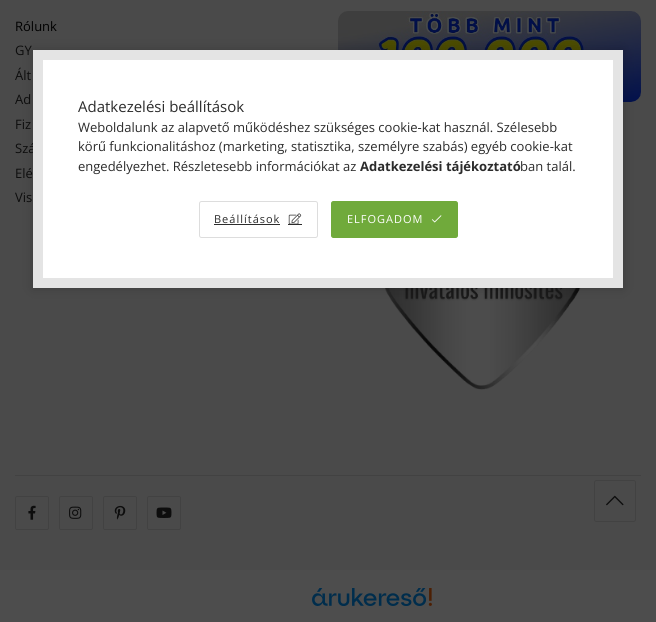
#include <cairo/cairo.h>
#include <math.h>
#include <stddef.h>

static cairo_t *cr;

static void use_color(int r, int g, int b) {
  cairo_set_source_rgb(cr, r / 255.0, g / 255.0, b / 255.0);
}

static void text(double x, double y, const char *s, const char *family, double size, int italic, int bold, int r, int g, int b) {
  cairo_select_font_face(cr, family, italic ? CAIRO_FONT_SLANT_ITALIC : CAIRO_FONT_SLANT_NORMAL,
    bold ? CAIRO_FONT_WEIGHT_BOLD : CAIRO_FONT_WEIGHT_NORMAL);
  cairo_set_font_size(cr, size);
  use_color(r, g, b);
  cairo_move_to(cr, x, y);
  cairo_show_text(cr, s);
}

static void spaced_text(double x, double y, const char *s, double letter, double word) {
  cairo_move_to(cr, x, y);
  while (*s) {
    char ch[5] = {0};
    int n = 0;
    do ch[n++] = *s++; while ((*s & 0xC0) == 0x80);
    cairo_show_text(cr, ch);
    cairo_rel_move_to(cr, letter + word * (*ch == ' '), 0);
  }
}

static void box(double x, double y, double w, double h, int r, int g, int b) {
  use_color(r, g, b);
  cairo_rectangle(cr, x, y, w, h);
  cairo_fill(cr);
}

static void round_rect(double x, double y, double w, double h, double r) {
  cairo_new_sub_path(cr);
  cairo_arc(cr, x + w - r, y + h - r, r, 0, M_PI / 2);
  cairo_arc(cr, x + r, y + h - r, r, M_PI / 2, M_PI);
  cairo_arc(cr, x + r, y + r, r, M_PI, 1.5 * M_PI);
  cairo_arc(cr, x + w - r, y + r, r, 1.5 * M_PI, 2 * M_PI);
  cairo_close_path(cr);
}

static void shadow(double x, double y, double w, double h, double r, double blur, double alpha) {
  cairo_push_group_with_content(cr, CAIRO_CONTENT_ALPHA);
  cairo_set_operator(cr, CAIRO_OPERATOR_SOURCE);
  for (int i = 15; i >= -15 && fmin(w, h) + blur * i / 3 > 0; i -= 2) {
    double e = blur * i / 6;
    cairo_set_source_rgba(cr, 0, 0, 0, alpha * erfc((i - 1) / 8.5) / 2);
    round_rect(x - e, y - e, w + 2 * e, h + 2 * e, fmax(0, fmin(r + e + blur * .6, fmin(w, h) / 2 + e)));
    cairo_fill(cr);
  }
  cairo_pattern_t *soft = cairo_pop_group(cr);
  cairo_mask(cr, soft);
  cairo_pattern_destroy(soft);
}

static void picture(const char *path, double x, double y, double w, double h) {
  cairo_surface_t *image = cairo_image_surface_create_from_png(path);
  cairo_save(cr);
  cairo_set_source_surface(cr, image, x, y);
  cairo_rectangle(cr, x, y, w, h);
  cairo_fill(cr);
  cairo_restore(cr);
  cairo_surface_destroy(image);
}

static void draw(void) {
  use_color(77, 77, 77);
  cairo_paint(cr);
  box(0, 0, 656, 570, 74, 74, 74);
  picture("img_01.png", 338, 11, 303, 91);
  picture("img_02.png", 385, 288, 196, 102);
  box(15, 475, 626, 1, 66, 66, 66);
  round_rect(15.5, 496.5, 33, 33, 1.5);
  cairo_set_line_width(cr, 1);
  cairo_stroke(cr);
  picture("img_03.png", 28, 505, 8, 15);
  round_rect(59.5, 496.5, 33, 33, 1.5);
  cairo_stroke(cr);
  picture("img_04.png", 69, 506, 13, 13);
  round_rect(103.5, 496.5, 33, 33, 1.5);
  cairo_stroke(cr);
  picture("img_05.png", 114, 505, 12, 15);
  round_rect(147.5, 496.5, 33, 33, 1.5);
  cairo_stroke(cr);
  picture("img_06.png", 156, 507, 16, 11);
  picture("img_07.png", 312, 588, 120, 18);
  use_color(0, 0, 0);
  shadow(33, 50, 590, 238, 0, 6, 0.2);
  round_rect(594.5, 480.5, 41, 41, 2);
  use_color(66, 66, 66);
  cairo_stroke(cr);
  picture("img_10.png", 606, 495, 18, 11);
  text(15, 31, "Rólunk", "Open Sans", 13, 0, 0, 0, 0, 0);
  text(15, 55, "GY", "Open Sans", 13, 0, 0, 13, 13, 13);
  text(15, 80, "Ált", "Open Sans", 13, 0, 0, 13, 13, 13);
  text(15, 104, "Ad", "Open Sans", 13, 0, 0, 13, 13, 13);
  text(15, 129, "Fiz", "Open Sans", 13, 0, 0, 13, 13, 13);
  text(15, 153, "Szá", "Open Sans", 13, 0, 0, 13, 13, 13);
  text(15, 178, "Elé", "Open Sans", 13, 0, 0, 13, 13, 13);
  text(15, 202, "Vis", "Open Sans", 13, 0, 0, 13, 13, 13);
  use_color(255, 255, 255);
  cairo_rectangle(cr, 38, 55, 580, 228);
  cairo_fill_preserve(cr);
  use_color(228, 228, 228);
  cairo_set_line_width(cr, 10);
  cairo_stroke(cr);
  text(78, 112, "Adatkezelési beállítások", "Open Sans", 15, 0, 0, 44, 44, 44);
  text(78, 132, "Weboldalunk az alapvető működéshez szükséges cookie-kat használ. Szélesebb", "Open Sans", 13, 0, 0, 44, 44, 44);
  text(78, 151, "körű funkcionalitáshoz (marketing, statisztika, személyre szabás) egyéb cookie-kat", "Open Sans", 13, 0, 0, 44, 44, 44);
  text(78, 171, "engedélyezhet. Részletesebb információkat az", "Open Sans", 13, 0, 0, 44, 44, 44);
  text(360, 171, "Adatkezelési tájékoztató", "Open Sans", 13, 0, 1, 44, 44, 44);
  text(520, 171, "ban talál.", "Open Sans", 13, 0, 0, 44, 44, 44);
  round_rect(199.5, 201.5, 118, 36, 2);
  use_color(221, 221, 221);
  cairo_set_line_width(cr, 1);
  cairo_stroke(cr);
  cairo_set_font_size(cr, 11);
  use_color(44, 44, 44);
  spaced_text(214, 223, "Beállítások", 1, 0);
  box(214, 224, 66, 1, 44, 44, 44);
  picture("img_08.png", 288, 213, 14, 11);
  box(288, 224, 14, 1, 44, 44, 44);
  use_color(112, 170, 59);
  round_rect(331.5, 201.5, 126, 36, 2);
  cairo_fill_preserve(cr);
  cairo_stroke(cr);
  use_color(255, 255, 255);
  spaced_text(347, 223, "ELFOGADOM", 1, 0);
  picture("img_09.png", 431, 215, 11, 8);
}

int main(void) {
  cairo_surface_t *surface = cairo_image_surface_create(CAIRO_FORMAT_RGB24, 656, 622);
  cr = cairo_create(surface);
  cairo_font_options_t *options = cairo_font_options_create();
  cairo_font_options_set_hint_metrics(options, CAIRO_HINT_METRICS_OFF);
  cairo_font_options_set_hint_style(options, CAIRO_HINT_STYLE_NONE);
  cairo_set_font_options(cr, options);
  cairo_set_miter_limit(cr, 4);
  draw();
  cairo_surface_write_to_png(surface, "out.png");
  cairo_font_options_destroy(options);
  cairo_destroy(cr);
  cairo_surface_destroy(surface);
  return 0;
}
